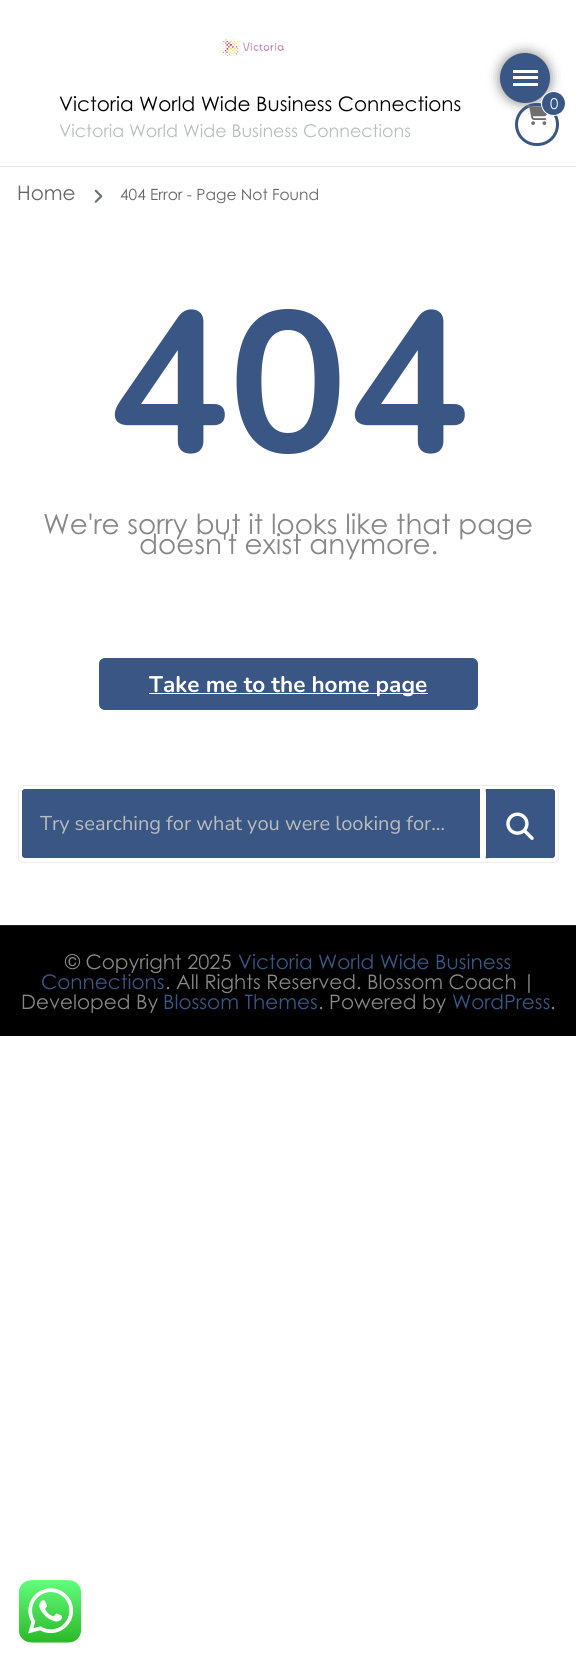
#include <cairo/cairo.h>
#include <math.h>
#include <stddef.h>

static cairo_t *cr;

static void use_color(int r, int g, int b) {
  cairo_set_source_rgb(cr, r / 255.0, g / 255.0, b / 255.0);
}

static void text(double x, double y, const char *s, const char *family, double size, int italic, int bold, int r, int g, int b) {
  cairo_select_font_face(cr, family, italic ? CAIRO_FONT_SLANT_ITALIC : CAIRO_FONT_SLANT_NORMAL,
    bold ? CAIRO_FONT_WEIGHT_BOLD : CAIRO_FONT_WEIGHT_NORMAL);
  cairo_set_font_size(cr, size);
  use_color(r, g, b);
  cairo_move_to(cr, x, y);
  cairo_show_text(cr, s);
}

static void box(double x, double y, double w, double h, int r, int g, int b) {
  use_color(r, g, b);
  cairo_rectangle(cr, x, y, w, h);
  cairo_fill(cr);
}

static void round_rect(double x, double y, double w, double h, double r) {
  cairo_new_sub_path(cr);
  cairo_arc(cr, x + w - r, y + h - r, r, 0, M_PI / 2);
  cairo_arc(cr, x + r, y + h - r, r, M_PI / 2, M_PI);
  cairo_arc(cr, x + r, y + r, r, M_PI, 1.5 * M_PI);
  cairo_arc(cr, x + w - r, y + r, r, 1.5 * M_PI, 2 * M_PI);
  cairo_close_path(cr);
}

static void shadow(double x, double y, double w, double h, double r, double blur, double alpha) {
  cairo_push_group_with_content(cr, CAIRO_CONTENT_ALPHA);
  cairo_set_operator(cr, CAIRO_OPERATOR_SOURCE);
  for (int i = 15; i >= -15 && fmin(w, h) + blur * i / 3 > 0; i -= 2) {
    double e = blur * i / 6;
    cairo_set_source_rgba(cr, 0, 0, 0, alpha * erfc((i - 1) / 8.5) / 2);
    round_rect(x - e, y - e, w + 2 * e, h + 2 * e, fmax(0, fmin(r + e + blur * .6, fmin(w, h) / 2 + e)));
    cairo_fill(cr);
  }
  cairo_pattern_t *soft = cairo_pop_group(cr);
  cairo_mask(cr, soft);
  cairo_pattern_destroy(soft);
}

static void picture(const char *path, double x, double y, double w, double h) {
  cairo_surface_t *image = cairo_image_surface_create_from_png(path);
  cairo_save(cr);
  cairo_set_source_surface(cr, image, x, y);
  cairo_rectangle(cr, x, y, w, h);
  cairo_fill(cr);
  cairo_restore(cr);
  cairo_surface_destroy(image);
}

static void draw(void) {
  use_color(255, 255, 255);
  cairo_paint(cr);
  box(0, 166, 576, 1, 229, 229, 229);
  picture("img_01.png", 221, 37, 64, 19);
  use_color(0, 0, 0);
  shadow(500, 53, 50, 50, 25, 6, 0.5);
  use_color(58, 86, 132);
  cairo_arc(cr, 525, 78, 25, 0, 2 * M_PI);
  cairo_fill(cr);
  box(513, 70, 25, 3, 255, 255, 255);
  box(513, 76, 25, 3, 255, 255, 255);
  box(513, 83, 25, 3, 255, 255, 255);
  round_rect(516.5, 104.5, 41, 40, 20);
  use_color(58, 86, 132);
  cairo_set_line_width(cr, 3);
  cairo_stroke(cr);
  picture("img_02.png", 526, 105, 21, 20);
  cairo_arc(cr, 553.5, 103.5, 12, 0, 2 * M_PI);
  cairo_fill_preserve(cr);
  use_color(255, 255, 255);
  cairo_set_line_width(cr, 1);
  cairo_stroke(cr);
  picture("img_03.png", 94, 189, 9, 14);
  use_color(58, 86, 132);
  round_rect(99, 658, 379, 52, 6);
  cairo_fill(cr);
  box(149, 693, 279, 1, 255, 255, 255);
  round_rect(18.5, 785.5, 540, 77, 5.5);
  use_color(237, 237, 237);
  cairo_stroke(cr);
  use_color(58, 86, 132);
  cairo_new_path(cr);
  cairo_move_to(cr, 25, 787.5);
  cairo_line_to(cr, 481.5, 787.5);
  cairo_line_to(cr, 481.5, 859.5);
  cairo_line_to(cr, 25, 859.5);
  cairo_curve_to(cr, 22.5, 859.5, 20.5, 857.5, 20.5, 855);
  cairo_line_to(cr, 20.5, 792);
  cairo_curve_to(cr, 20.5, 789.5, 22.5, 787.5, 25, 787.5);
  cairo_close_path(cr);
  cairo_fill_preserve(cr);
  use_color(255, 255, 255);
  cairo_set_line_width(cr, 3);
  cairo_stroke(cr);
  use_color(58, 86, 132);
  cairo_new_path(cr);
  cairo_move_to(cr, 484.5, 787.5);
  cairo_line_to(cr, 552, 787.5);
  cairo_curve_to(cr, 554.5, 787.5, 556.5, 789.5, 556.5, 792);
  cairo_line_to(cr, 556.5, 855);
  cairo_curve_to(cr, 556.5, 857.5, 554.5, 859.5, 552, 859.5);
  cairo_line_to(cr, 484.5, 859.5);
  cairo_close_path(cr);
  cairo_fill_preserve(cr);
  use_color(255, 255, 255);
  cairo_stroke(cr);
  picture("img_04.png", 506, 812, 28, 28);
  cairo_save(cr);
  cairo_new_path(cr);
  cairo_move_to(cr, 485, 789);
  cairo_line_to(cr, 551, 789);
  cairo_curve_to(cr, 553, 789, 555, 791, 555, 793);
  cairo_line_to(cr, 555, 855);
  cairo_curve_to(cr, 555, 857, 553, 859, 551, 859);
  cairo_line_to(cr, 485, 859);
  cairo_close_path(cr);
  cairo_clip(cr);
  cairo_set_fill_rule(cr, CAIRO_FILL_RULE_EVEN_ODD);
  cairo_new_path(cr);
  cairo_move_to(cr, 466, 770);
  cairo_line_to(cr, 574, 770);
  cairo_line_to(cr, 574, 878);
  cairo_line_to(cr, 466, 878);
  cairo_close_path(cr);
  cairo_move_to(cr, 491, 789);
  cairo_line_to(cr, 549, 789);
  cairo_curve_to(cr, 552.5, 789, 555, 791.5, 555, 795);
  cairo_line_to(cr, 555, 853);
  cairo_curve_to(cr, 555, 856.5, 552.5, 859, 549, 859);
  cairo_line_to(cr, 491, 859);
  cairo_curve_to(cr, 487.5, 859, 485, 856.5, 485, 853);
  cairo_line_to(cr, 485, 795);
  cairo_curve_to(cr, 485, 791.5, 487.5, 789, 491, 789);
  cairo_close_path(cr);
  cairo_clip(cr);
  use_color(0, 0, 0);
  shadow(485, 789, 70, 70, 6, 6, 0.5);
  cairo_restore(cr);
  box(0, 926, 576, 110, 0, 0, 0);
  box(0, 925, 576, 1, 26, 26, 26);
  picture("img_05.png", 19, 1580, 62, 63);
  text(59, 111, "Victoria World Wide Business Connections", "Century Gothic", 20, 0, 0, 0, 0, 0);
  text(59, 137, "Victoria World Wide Business Connections", "Century Gothic", 17.5, 0, 0, 185, 189, 189);
  text(550, 109, "0", "Century Gothic", 15, 0, 0, 255, 255, 255);
  text(17, 200, "Home", "Century Gothic", 20, 0, 0, 102, 102, 102);
  text(120, 200, "404 Error - Page Not Found", "Century Gothic", 15.5, 0, 0, 102, 102, 102);
  text(108, 452, "404", "Nunito", 200, 0, 1, 58, 86, 132);
  text(43, 534, "We're sorry but it looks like that page", "Century Gothic", 27.75, 0, 0, 135, 135, 135);
  text(139, 554, "doesn't exist anymore.", "Century Gothic", 27.75, 0, 0, 135, 135, 135);
  text(149, 692, "Take me to the home page", "Nunito", 22.5, 0, 1, 255, 255, 255);
  text(40, 830, "Try searching for what you were looking for…", "Nunito Sans", 20, 0, 0, 185, 189, 189);
  text(65, 969, "© Copyright 2025", "Century Gothic", 20, 0, 0, 135, 135, 135);
  text(238, 969, "Victoria World Wide Business", "Century Gothic", 20, 0, 0, 58, 86, 132);
  text(41, 989, "Connections", "Century Gothic", 20, 0, 0, 58, 86, 132);
  text(165, 989, ". All Rights Reserved. Blossom Coach |", "Century Gothic", 20, 0, 0, 135, 135, 135);
  text(21, 1009, "Developed By", "Century Gothic", 20, 0, 0, 135, 135, 135);
  text(163, 1009, "Blossom Themes", "Century Gothic", 20, 0, 0, 58, 86, 132);
  text(318, 1009, ". Powered by", "Century Gothic", 20, 0, 0, 135, 135, 135);
  text(452, 1009, "WordPress", "Century Gothic", 20, 0, 0, 58, 86, 132);
  text(550, 1009, ".", "Century Gothic", 20, 0, 0, 135, 135, 135);
}

int main(void) {
  cairo_surface_t *surface = cairo_image_surface_create(CAIRO_FORMAT_RGB24, 576, 1661);
  cr = cairo_create(surface);
  cairo_font_options_t *options = cairo_font_options_create();
  cairo_font_options_set_hint_metrics(options, CAIRO_HINT_METRICS_OFF);
  cairo_font_options_set_hint_style(options, CAIRO_HINT_STYLE_NONE);
  cairo_set_font_options(cr, options);
  cairo_set_miter_limit(cr, 4);
  draw();
  cairo_surface_write_to_png(surface, "out.png");
  cairo_font_options_destroy(options);
  cairo_destroy(cr);
  cairo_surface_destroy(surface);
  return 0;
}
